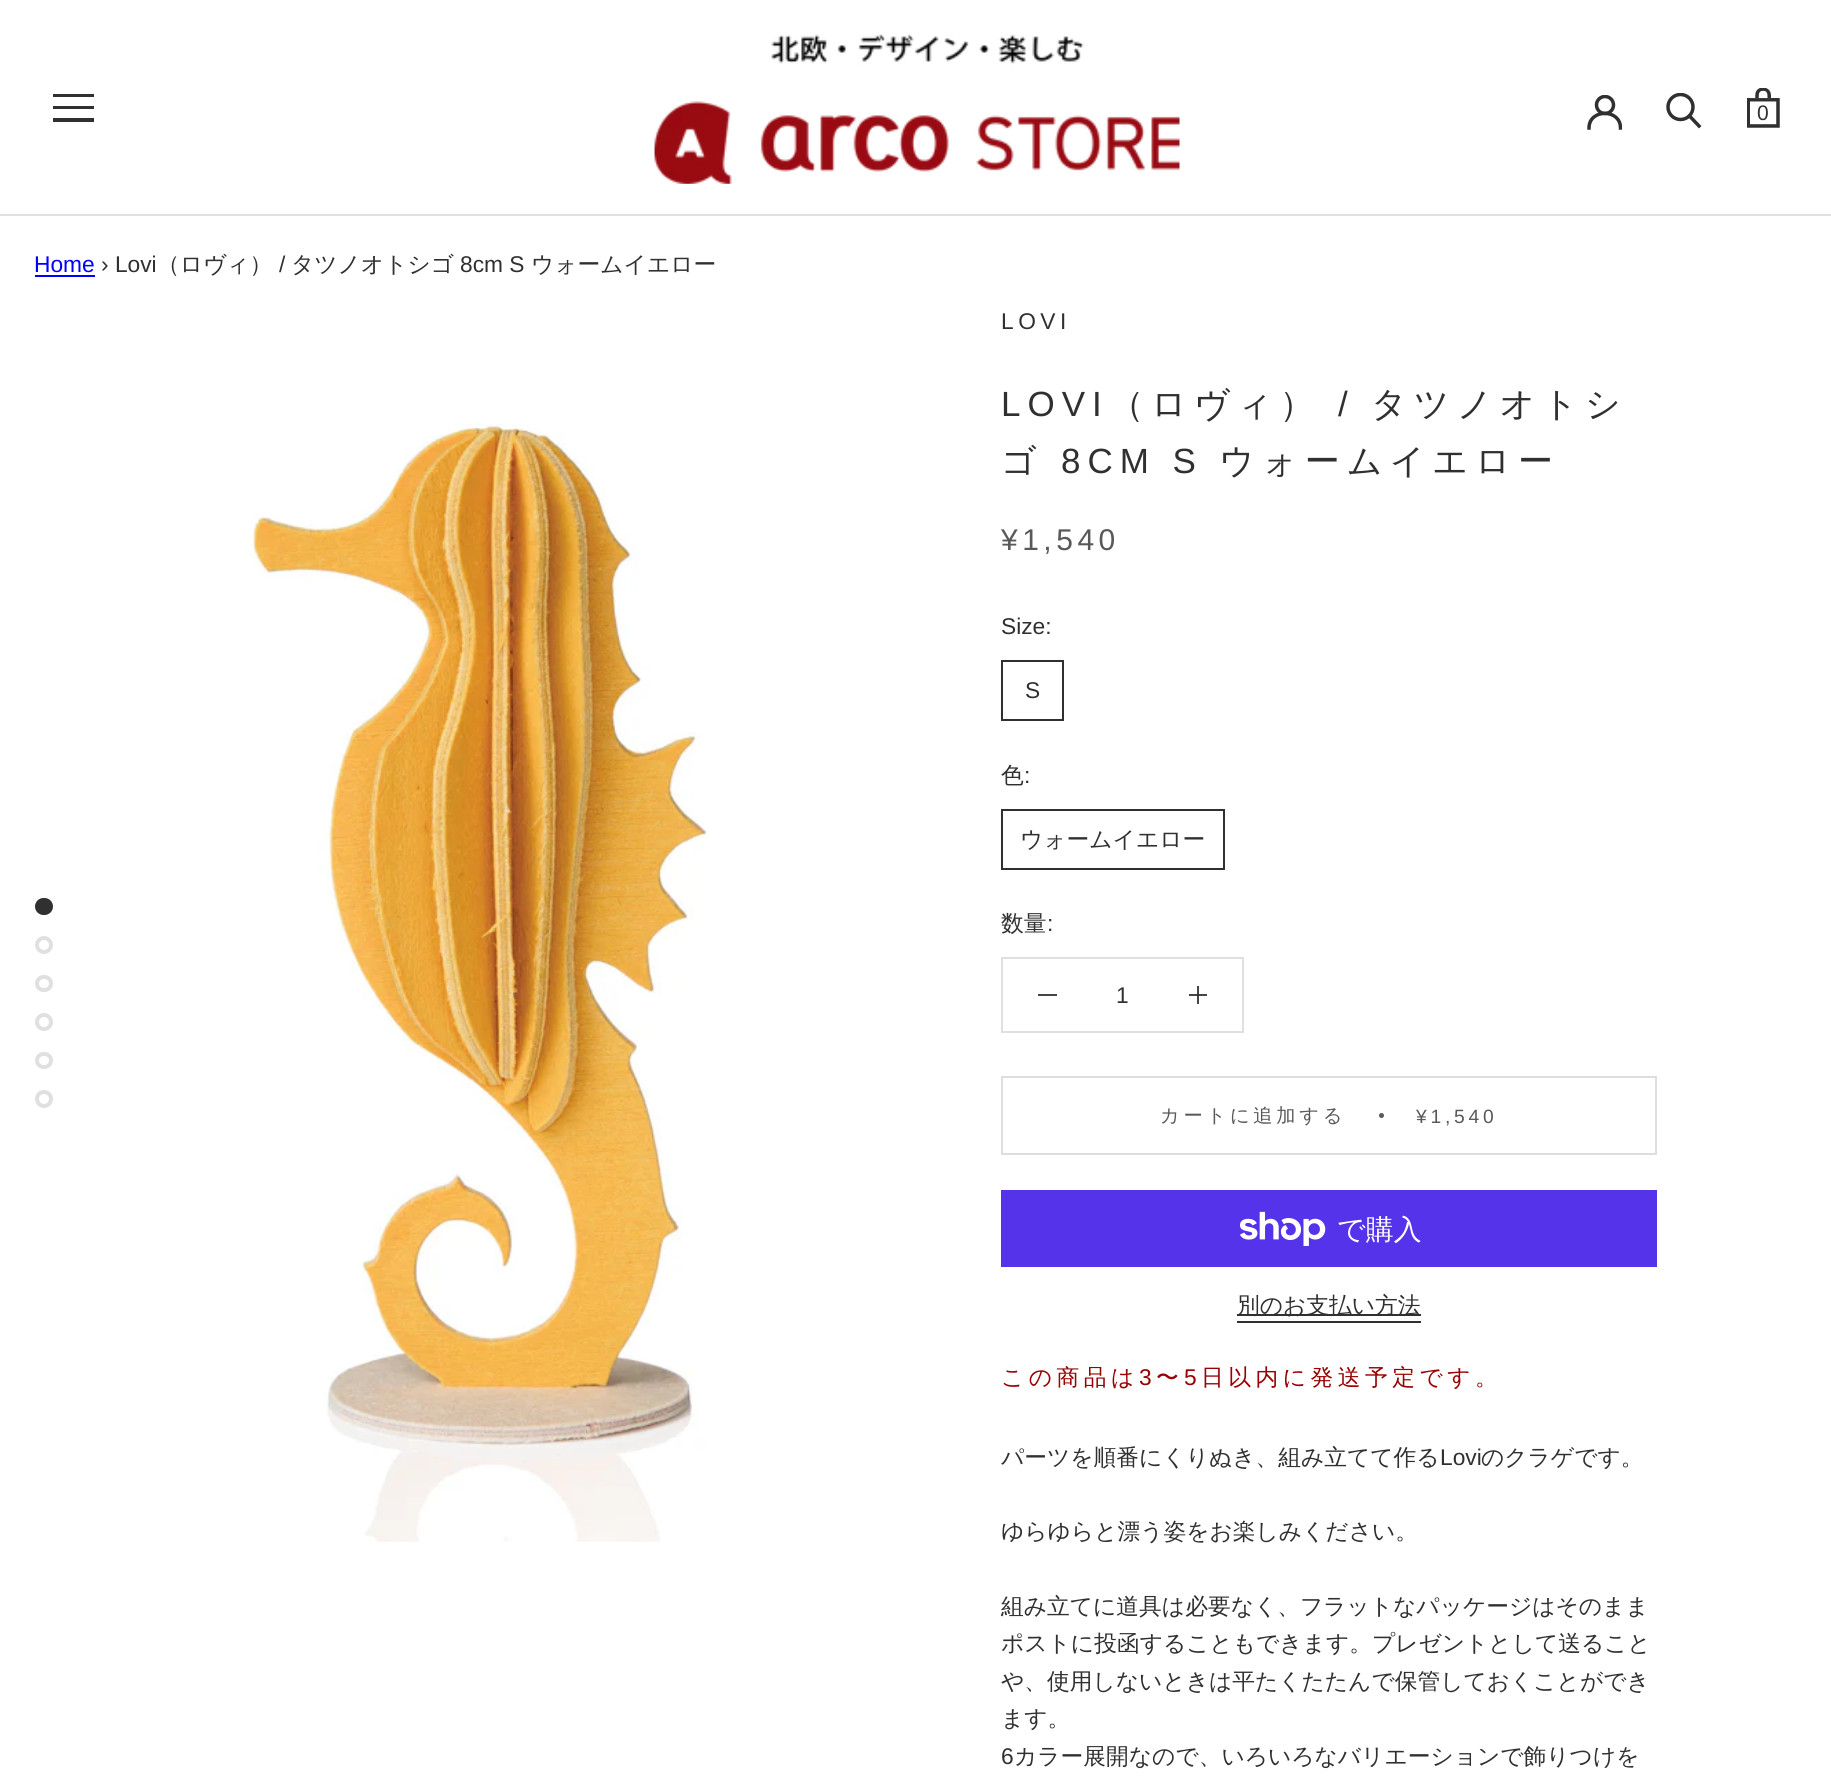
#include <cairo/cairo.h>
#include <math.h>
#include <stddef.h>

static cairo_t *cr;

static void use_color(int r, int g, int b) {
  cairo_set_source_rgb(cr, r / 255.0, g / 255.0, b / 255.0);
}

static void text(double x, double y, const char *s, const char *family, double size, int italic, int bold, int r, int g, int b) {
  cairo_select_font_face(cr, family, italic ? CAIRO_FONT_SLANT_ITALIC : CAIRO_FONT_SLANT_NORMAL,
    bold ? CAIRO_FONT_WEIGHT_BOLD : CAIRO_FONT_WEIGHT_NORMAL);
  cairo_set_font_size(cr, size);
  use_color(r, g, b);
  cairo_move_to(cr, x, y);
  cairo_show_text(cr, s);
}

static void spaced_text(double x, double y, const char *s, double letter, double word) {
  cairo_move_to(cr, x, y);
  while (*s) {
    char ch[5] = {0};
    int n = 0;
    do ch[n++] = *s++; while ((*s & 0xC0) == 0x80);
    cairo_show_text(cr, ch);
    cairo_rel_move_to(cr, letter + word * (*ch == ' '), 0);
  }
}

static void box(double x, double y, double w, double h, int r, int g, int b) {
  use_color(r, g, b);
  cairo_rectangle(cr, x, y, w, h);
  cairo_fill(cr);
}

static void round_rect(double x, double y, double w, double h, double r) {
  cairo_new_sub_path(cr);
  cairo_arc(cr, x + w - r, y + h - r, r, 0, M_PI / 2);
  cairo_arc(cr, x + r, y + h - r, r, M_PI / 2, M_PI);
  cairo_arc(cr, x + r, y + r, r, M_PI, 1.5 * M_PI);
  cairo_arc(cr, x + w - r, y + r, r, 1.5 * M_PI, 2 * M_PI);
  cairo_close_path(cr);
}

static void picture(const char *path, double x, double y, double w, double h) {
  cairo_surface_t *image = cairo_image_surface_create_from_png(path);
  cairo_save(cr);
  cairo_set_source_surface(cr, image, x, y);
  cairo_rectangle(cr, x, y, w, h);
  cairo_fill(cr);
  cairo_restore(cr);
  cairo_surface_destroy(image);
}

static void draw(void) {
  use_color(255, 255, 255);
  cairo_paint(cr);
  box(1189, 994, 18, 2, 69, 69, 69);
  box(0, 214, 1831, 2, 224, 224, 224);
  cairo_save(cr);
  cairo_rectangle(cr, 53, 93, 42, 30);
  cairo_clip(cr);
  use_color(48, 48, 48);
  cairo_new_path(cr);
  cairo_move_to(cr, 52, 122);
  cairo_line_to(cr, 52, 118);
  cairo_line_to(cr, 94, 118);
  cairo_line_to(cr, 94, 122);
  cairo_close_path(cr);
  cairo_move_to(cr, 52, 106);
  cairo_line_to(cr, 94, 106);
  cairo_line_to(cr, 94, 109);
  cairo_line_to(cr, 52, 109);
  cairo_close_path(cr);
  cairo_move_to(cr, 52, 94);
  cairo_line_to(cr, 94, 94);
  cairo_line_to(cr, 94, 97);
  cairo_line_to(cr, 52, 97);
  cairo_close_path(cr);
  cairo_fill(cr);
  cairo_restore(cr);
  picture("img_01.png", 654, 34, 526, 150);
  cairo_save(cr);
  cairo_rectangle(cr, 1587, 95, 35, 35);
  cairo_clip(cr);
  cairo_new_path(cr);
  cairo_move_to(cr, 1589, 128);
  cairo_curve_to(cr, 1589, 108.5, 1620.5, 108.5, 1620.5, 128);
  use_color(48, 48, 48);
  cairo_set_line_width(cr, 3.5);
  cairo_set_line_cap(cr, CAIRO_LINE_CAP_SQUARE);
  cairo_stroke(cr);
  cairo_arc(cr, 1605, 105, 8.5, 0, 2 * M_PI);
  cairo_set_line_cap(cr, CAIRO_LINE_CAP_BUTT);
  cairo_stroke(cr);
  cairo_restore(cr);
  cairo_new_path(cr);
  cairo_move_to(cr, 1699, 126);
  cairo_line_to(cr, 1689.5, 116);
  use_color(48, 48, 48);
  cairo_set_line_width(cr, 3.5);
  cairo_set_line_cap(cr, CAIRO_LINE_CAP_SQUARE);
  cairo_stroke(cr);
  cairo_save(cr);
  cairo_rectangle(cr, 1666, 93, 37, 37);
  cairo_clip(cr);
  cairo_arc(cr, 1680.5, 107, 12.5, 0, 2 * M_PI);
  cairo_set_line_cap(cr, CAIRO_LINE_CAP_BUTT);
  cairo_stroke(cr);
  cairo_restore(cr);
  picture("img_02.png", 1747, 88, 33, 40);
  box(35, 275, 60, 2, 0, 0, 255);
  use_color(48, 48, 48);
  round_rect(37, 900, 14, 13, 6.5);
  cairo_fill_preserve(cr);
  cairo_set_line_width(cr, 4);
  cairo_set_line_cap(cr, CAIRO_LINE_CAP_BUTT);
  cairo_stroke(cr);
  cairo_arc(cr, 44, 945, 7, 0, 2 * M_PI);
  use_color(224, 224, 224);
  cairo_stroke(cr);
  round_rect(37, 977, 14, 13, 6.5);
  cairo_stroke(cr);
  cairo_arc(cr, 44, 1022, 7, 0, 2 * M_PI);
  cairo_stroke(cr);
  round_rect(37, 1054, 14, 13, 6.5);
  cairo_stroke(cr);
  cairo_arc(cr, 44, 1099, 7, 0, 2 * M_PI);
  cairo_stroke(cr);
  picture("img_03.png", 252, 424, 455, 1118);
  cairo_rectangle(cr, 1002, 661, 61, 59);
  use_color(48, 48, 48);
  cairo_set_line_width(cr, 2);
  cairo_stroke(cr);
  cairo_rectangle(cr, 1002, 810, 222, 59);
  cairo_stroke(cr);
  cairo_rectangle(cr, 1002, 958, 241, 74);
  use_color(224, 224, 224);
  cairo_stroke(cr);
  box(1038, 994, 19, 2, 69, 69, 69);
  box(1197, 986, 2, 18, 69, 69, 69);
  box(1197, 994, 2, 2, 50, 50, 50);
  cairo_rectangle(cr, 1002, 1077, 654, 77);
  use_color(222, 222, 222);
  cairo_stroke(cr);
  use_color(89, 89, 89);
  cairo_arc(cr, 1381.5, 1115.5, 2.5, 0, 2 * M_PI);
  cairo_fill(cr);
  box(1001, 1190, 656, 77, 84, 51, 235);
  picture("img_04.png", 1240, 1211, 86, 35);
  box(1237, 1314, 184, 2, 48, 48, 48);
  box(1237, 1321, 184, 2, 48, 48, 48);
  text(1757, 120, "0", "Liberation Sans", 21, 0, 0, 48, 48, 48);
  text(34, 272, "Home", "Liberation Sans", 22.75, 0, 0, 0, 0, 255);
  text(101, 272, "› Lovi", "Liberation Sans", 22.75, 0, 0, 48, 48, 48);
  text(157, 272, "（ロヴィ）", "WenQuanYi Zen Hei Medium", 22.75, 0, 0, 48, 48, 48);
  text(279, 272, "/", "Liberation Sans", 22.75, 0, 0, 48, 48, 48);
  text(291, 272, "タツノオトシゴ", "WenQuanYi Zen Hei Medium", 22.75, 0, 0, 48, 48, 48);
  text(460, 272, "8cm S", "Liberation Sans", 22.75, 0, 0, 48, 48, 48);
  text(531, 272, "ウォームイエロー", "WenQuanYi Zen Hei Medium", 22.75, 0, 0, 48, 48, 48);
  cairo_select_font_face(cr, "Liberation Sans", CAIRO_FONT_SLANT_NORMAL, CAIRO_FONT_WEIGHT_NORMAL);
  spaced_text(1001, 329, "LOVI", 4.5, 0);
  cairo_set_font_size(cr, 35);
  spaced_text(1001, 416, "LOVI", 7, 0);
  cairo_select_font_face(cr, "WenQuanYi Zen Hei Medium", CAIRO_FONT_SLANT_NORMAL, CAIRO_FONT_WEIGHT_NORMAL);
  spaced_text(1109, 416, "（ロヴィ）", 7, 0);
  cairo_select_font_face(cr, "Liberation Sans", CAIRO_FONT_SLANT_NORMAL, CAIRO_FONT_WEIGHT_NORMAL);
  spaced_text(1338, 416, "/", 7, 0);
  cairo_select_font_face(cr, "WenQuanYi Zen Hei Medium", CAIRO_FONT_SLANT_NORMAL, CAIRO_FONT_WEIGHT_NORMAL);
  spaced_text(1371, 416, "タツノオトシ", 7, 0);
  spaced_text(1001, 473, "ゴ", 7, 0);
  cairo_select_font_face(cr, "Liberation Sans", CAIRO_FONT_SLANT_NORMAL, CAIRO_FONT_WEIGHT_NORMAL);
  spaced_text(1061, 473, "8CM S", 7, 0);
  cairo_select_font_face(cr, "WenQuanYi Zen Hei Medium", CAIRO_FONT_SLANT_NORMAL, CAIRO_FONT_WEIGHT_NORMAL);
  spaced_text(1219, 473, "ウォームイエロー", 7, 0);
  cairo_select_font_face(cr, "Liberation Sans", CAIRO_FONT_SLANT_NORMAL, CAIRO_FONT_WEIGHT_NORMAL);
  cairo_set_font_size(cr, 30);
  use_color(89, 89, 89);
  spaced_text(1001, 550, "¥1,540", 4.5, 0);
  text(1001, 634, "Size:", "Liberation Sans", 22.75, 0, 0, 48, 48, 48);
  text(1025, 698, "S", "Liberation Sans", 22.75, 0, 0, 48, 48, 48);
  text(1001, 783, "色", "WenQuanYi Zen Hei Medium", 22.75, 0, 0, 48, 48, 48);
  text(1024, 783, ":", "Liberation Sans", 22.75, 0, 0, 48, 48, 48);
  text(1020, 847, "ウォームイエロー", "WenQuanYi Zen Hei Medium", 22.75, 0, 0, 48, 48, 48);
  text(1001, 931, "数量", "WenQuanYi Zen Hei Medium", 22.75, 0, 0, 48, 48, 48);
  text(1047, 931, ":", "Liberation Sans", 22.75, 0, 0, 48, 48, 48);
  text(1116, 1003, "1", "Liberation Sans", 22.75, 0, 0, 48, 48, 48);
  cairo_select_font_face(cr, "WenQuanYi Zen Hei Medium", CAIRO_FONT_SLANT_NORMAL, CAIRO_FONT_WEIGHT_NORMAL);
  cairo_set_font_size(cr, 19.25);
  use_color(89, 89, 89);
  spaced_text(1160, 1122, "カートに追加する", 3.75, 0);
  cairo_select_font_face(cr, "Liberation Sans", CAIRO_FONT_SLANT_NORMAL, CAIRO_FONT_WEIGHT_NORMAL);
  spaced_text(1416, 1123, "¥1,540", 3.75, 0);
  text(1337, 1239, "で購入", "WenQuanYi Zen Hei Medium", 28, 0, 0, 255, 255, 255);
  text(1237, 1313, "別のお支払い方法", "WenQuanYi Zen Hei Medium", 22.75, 0, 0, 48, 48, 48);
  use_color(153, 0, 0);
  spaced_text(1001, 1385, "この商品は", 4.5, 0);
  cairo_select_font_face(cr, "Liberation Sans", CAIRO_FONT_SLANT_NORMAL, CAIRO_FONT_WEIGHT_NORMAL);
  spaced_text(1139, 1385, "3", 4.5, 0);
  cairo_select_font_face(cr, "WenQuanYi Zen Hei Medium", CAIRO_FONT_SLANT_NORMAL, CAIRO_FONT_WEIGHT_NORMAL);
  spaced_text(1156, 1385, "〜", 4.5, 0);
  cairo_select_font_face(cr, "Liberation Sans", CAIRO_FONT_SLANT_NORMAL, CAIRO_FONT_WEIGHT_NORMAL);
  spaced_text(1184, 1385, "5", 4.5, 0);
  cairo_select_font_face(cr, "WenQuanYi Zen Hei Medium", CAIRO_FONT_SLANT_NORMAL, CAIRO_FONT_WEIGHT_NORMAL);
  spaced_text(1201, 1385, "日以内に発送予定です。", 4.5, 0);
  text(1001, 1465, "パーツを順番にくりぬき、組み立てて作る", "WenQuanYi Zen Hei Medium", 22.75, 0, 0, 48, 48, 48);
  text(1440, 1465, "Lovi", "Liberation Sans", 22.75, 0, 0, 48, 48, 48);
  text(1481, 1465, "のクラゲです。", "WenQuanYi Zen Hei Medium", 22.75, 0, 0, 48, 48, 48);
  text(1001, 1539, "ゆらゆらと漂う姿をお楽しみください。", "WenQuanYi Zen Hei Medium", 22.75, 0, 0, 48, 48, 48);
  text(1001, 1614, "組み立てに道具は必要なく、フラットなパッケージはそのまま", "WenQuanYi Zen Hei Medium", 22.75, 0, 0, 48, 48, 48);
  text(1001, 1651, "ポストに投函することもできます。プレゼントとして送ること", "WenQuanYi Zen Hei Medium", 22.75, 0, 0, 48, 48, 48);
  text(1001, 1689, "や、使用しないときは平たくたたんで保管しておくことができ", "WenQuanYi Zen Hei Medium", 22.75, 0, 0, 48, 48, 48);
  text(1001, 1726, "ます。", "WenQuanYi Zen Hei Medium", 22.75, 0, 0, 48, 48, 48);
  text(1001, 1764, "6", "Liberation Sans", 22.75, 0, 0, 48, 48, 48);
  text(1014, 1764, "カラー展開なので、いろいろなバリエーションで飾りつけを", "WenQuanYi Zen Hei Medium", 22.75, 0, 0, 48, 48, 48);
}

int main(void) {
  cairo_surface_t *surface = cairo_image_surface_create(CAIRO_FORMAT_RGB24, 1831, 1787);
  cr = cairo_create(surface);
  cairo_font_options_t *options = cairo_font_options_create();
  cairo_font_options_set_hint_metrics(options, CAIRO_HINT_METRICS_OFF);
  cairo_font_options_set_hint_style(options, CAIRO_HINT_STYLE_NONE);
  cairo_set_font_options(cr, options);
  cairo_set_miter_limit(cr, 4);
  draw();
  cairo_surface_write_to_png(surface, "out.png");
  cairo_font_options_destroy(options);
  cairo_destroy(cr);
  cairo_surface_destroy(surface);
  return 0;
}
